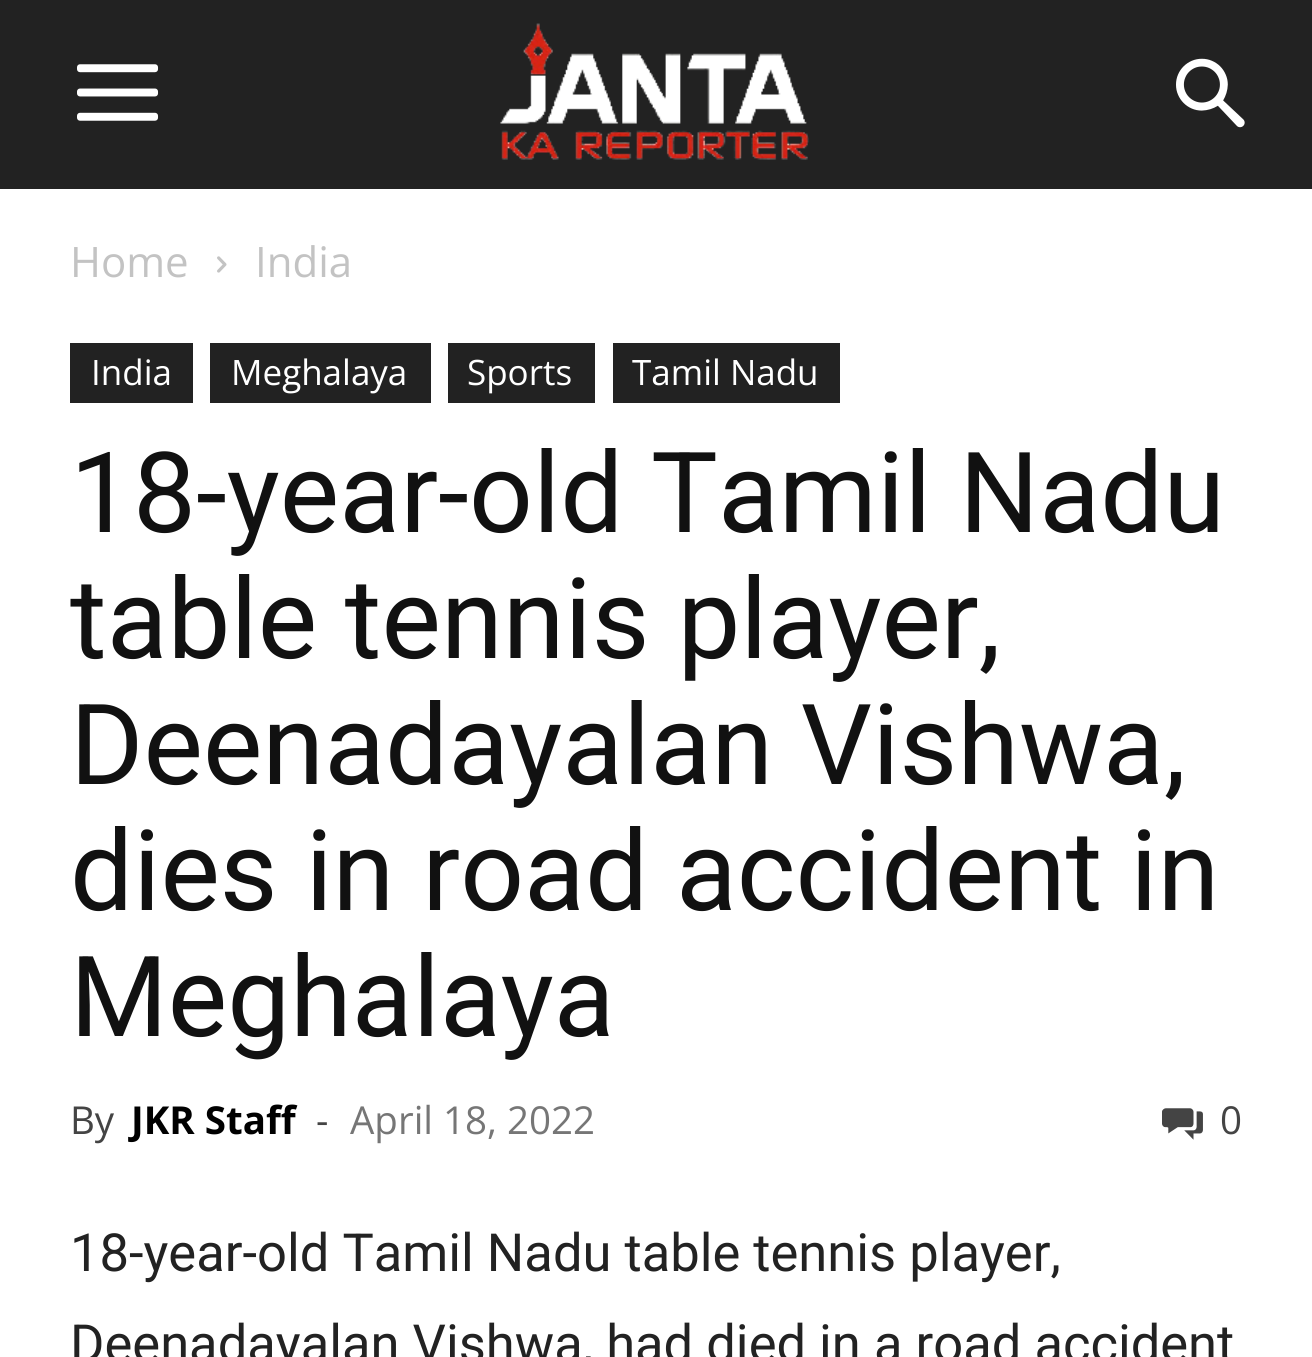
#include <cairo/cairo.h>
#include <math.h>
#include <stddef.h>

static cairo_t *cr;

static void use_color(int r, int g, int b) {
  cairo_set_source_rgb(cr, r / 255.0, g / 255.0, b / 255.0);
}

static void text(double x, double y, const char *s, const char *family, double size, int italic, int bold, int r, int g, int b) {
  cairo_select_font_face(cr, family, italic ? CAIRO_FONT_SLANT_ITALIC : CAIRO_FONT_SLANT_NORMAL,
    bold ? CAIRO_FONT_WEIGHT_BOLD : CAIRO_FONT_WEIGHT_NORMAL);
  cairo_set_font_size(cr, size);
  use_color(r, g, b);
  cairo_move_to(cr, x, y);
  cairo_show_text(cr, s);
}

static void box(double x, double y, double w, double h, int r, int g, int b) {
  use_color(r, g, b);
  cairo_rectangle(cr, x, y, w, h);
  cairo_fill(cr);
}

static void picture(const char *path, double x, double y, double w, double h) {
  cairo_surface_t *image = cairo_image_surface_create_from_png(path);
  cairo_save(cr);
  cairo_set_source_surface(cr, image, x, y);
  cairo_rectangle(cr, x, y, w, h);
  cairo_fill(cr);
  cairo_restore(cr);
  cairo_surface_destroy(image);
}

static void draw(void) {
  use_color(255, 255, 255);
  cairo_paint(cr);
  box(0, 0, 1312, 189, 34, 34, 34);
  picture("img_01.png", 77, 64, 82, 57);
  picture("img_02.png", 500, 23, 309, 137);
  picture("img_03.png", 1176, 58, 69, 70);
  picture("img_04.png", 217, 256, 10, 17);
  box(70, 343, 123, 60, 34, 34, 34);
  box(210, 343, 221, 60, 34, 34, 34);
  box(448, 343, 147, 60, 34, 34, 34);
  box(613, 343, 227, 60, 34, 34, 34);
  picture("img_05.png", 1162, 1108, 41, 32);
  text(70, 277, "Home", "Open Sans", 42, 0, 0, 195, 195, 195);
  text(255, 277, "India", "Open Sans", 42, 0, 0, 195, 195, 195);
  text(91, 385, "India", "Open Sans", 35, 0, 0, 255, 255, 255);
  text(231, 385, "Meghalaya", "Open Sans", 35, 0, 0, 255, 255, 255);
  text(467, 385, "Sports", "Open Sans", 35, 0, 0, 255, 255, 255);
  text(632, 385, "Tamil Nadu", "Open Sans", 35, 0, 0, 255, 255, 255);
  text(70, 532, "18-year-old Tamil Nadu", "Roboto", 112, 0, 0, 17, 17, 17);
  text(70, 658, "table tennis player,", "Roboto", 112, 0, 0, 17, 17, 17);
  text(70, 784, "Deenadayalan Vishwa,", "Roboto", 112, 0, 0, 17, 17, 17);
  text(70, 910, "dies in road accident in", "Roboto", 112, 0, 0, 17, 17, 17);
  text(70, 1036, "Meghalaya", "Roboto", 112, 0, 0, 17, 17, 17);
  text(70, 1134, "By", "Open Sans", 38.5, 0, 0, 68, 68, 68);
  text(131, 1134, "JKR Staff", "Open Sans", 38.5, 0, 1, 0, 0, 0);
  text(316, 1134, "-", "Open Sans", 38.5, 0, 0, 68, 68, 68);
  text(350, 1134, "April 18, 2022", "Open Sans", 38.5, 0, 0, 118, 118, 118);
  text(1220, 1134, "0", "Open Sans", 38.5, 0, 0, 68, 68, 68);
  text(70, 1271, "18-year-old Tamil Nadu table tennis player,", "Roboto", 52.5, 0, 0, 34, 34, 34);
  text(70, 1362, "Deenadayalan Vishwa, had died in a road accident", "Roboto", 52.5, 0, 0, 34, 34, 34);
}

int main(void) {
  cairo_surface_t *surface = cairo_image_surface_create(CAIRO_FORMAT_RGB24, 1312, 1357);
  cr = cairo_create(surface);
  cairo_font_options_t *options = cairo_font_options_create();
  cairo_font_options_set_hint_metrics(options, CAIRO_HINT_METRICS_OFF);
  cairo_font_options_set_hint_style(options, CAIRO_HINT_STYLE_NONE);
  cairo_set_font_options(cr, options);
  cairo_set_miter_limit(cr, 4);
  draw();
  cairo_surface_write_to_png(surface, "out.png");
  cairo_font_options_destroy(options);
  cairo_destroy(cr);
  cairo_surface_destroy(surface);
  return 0;
}
